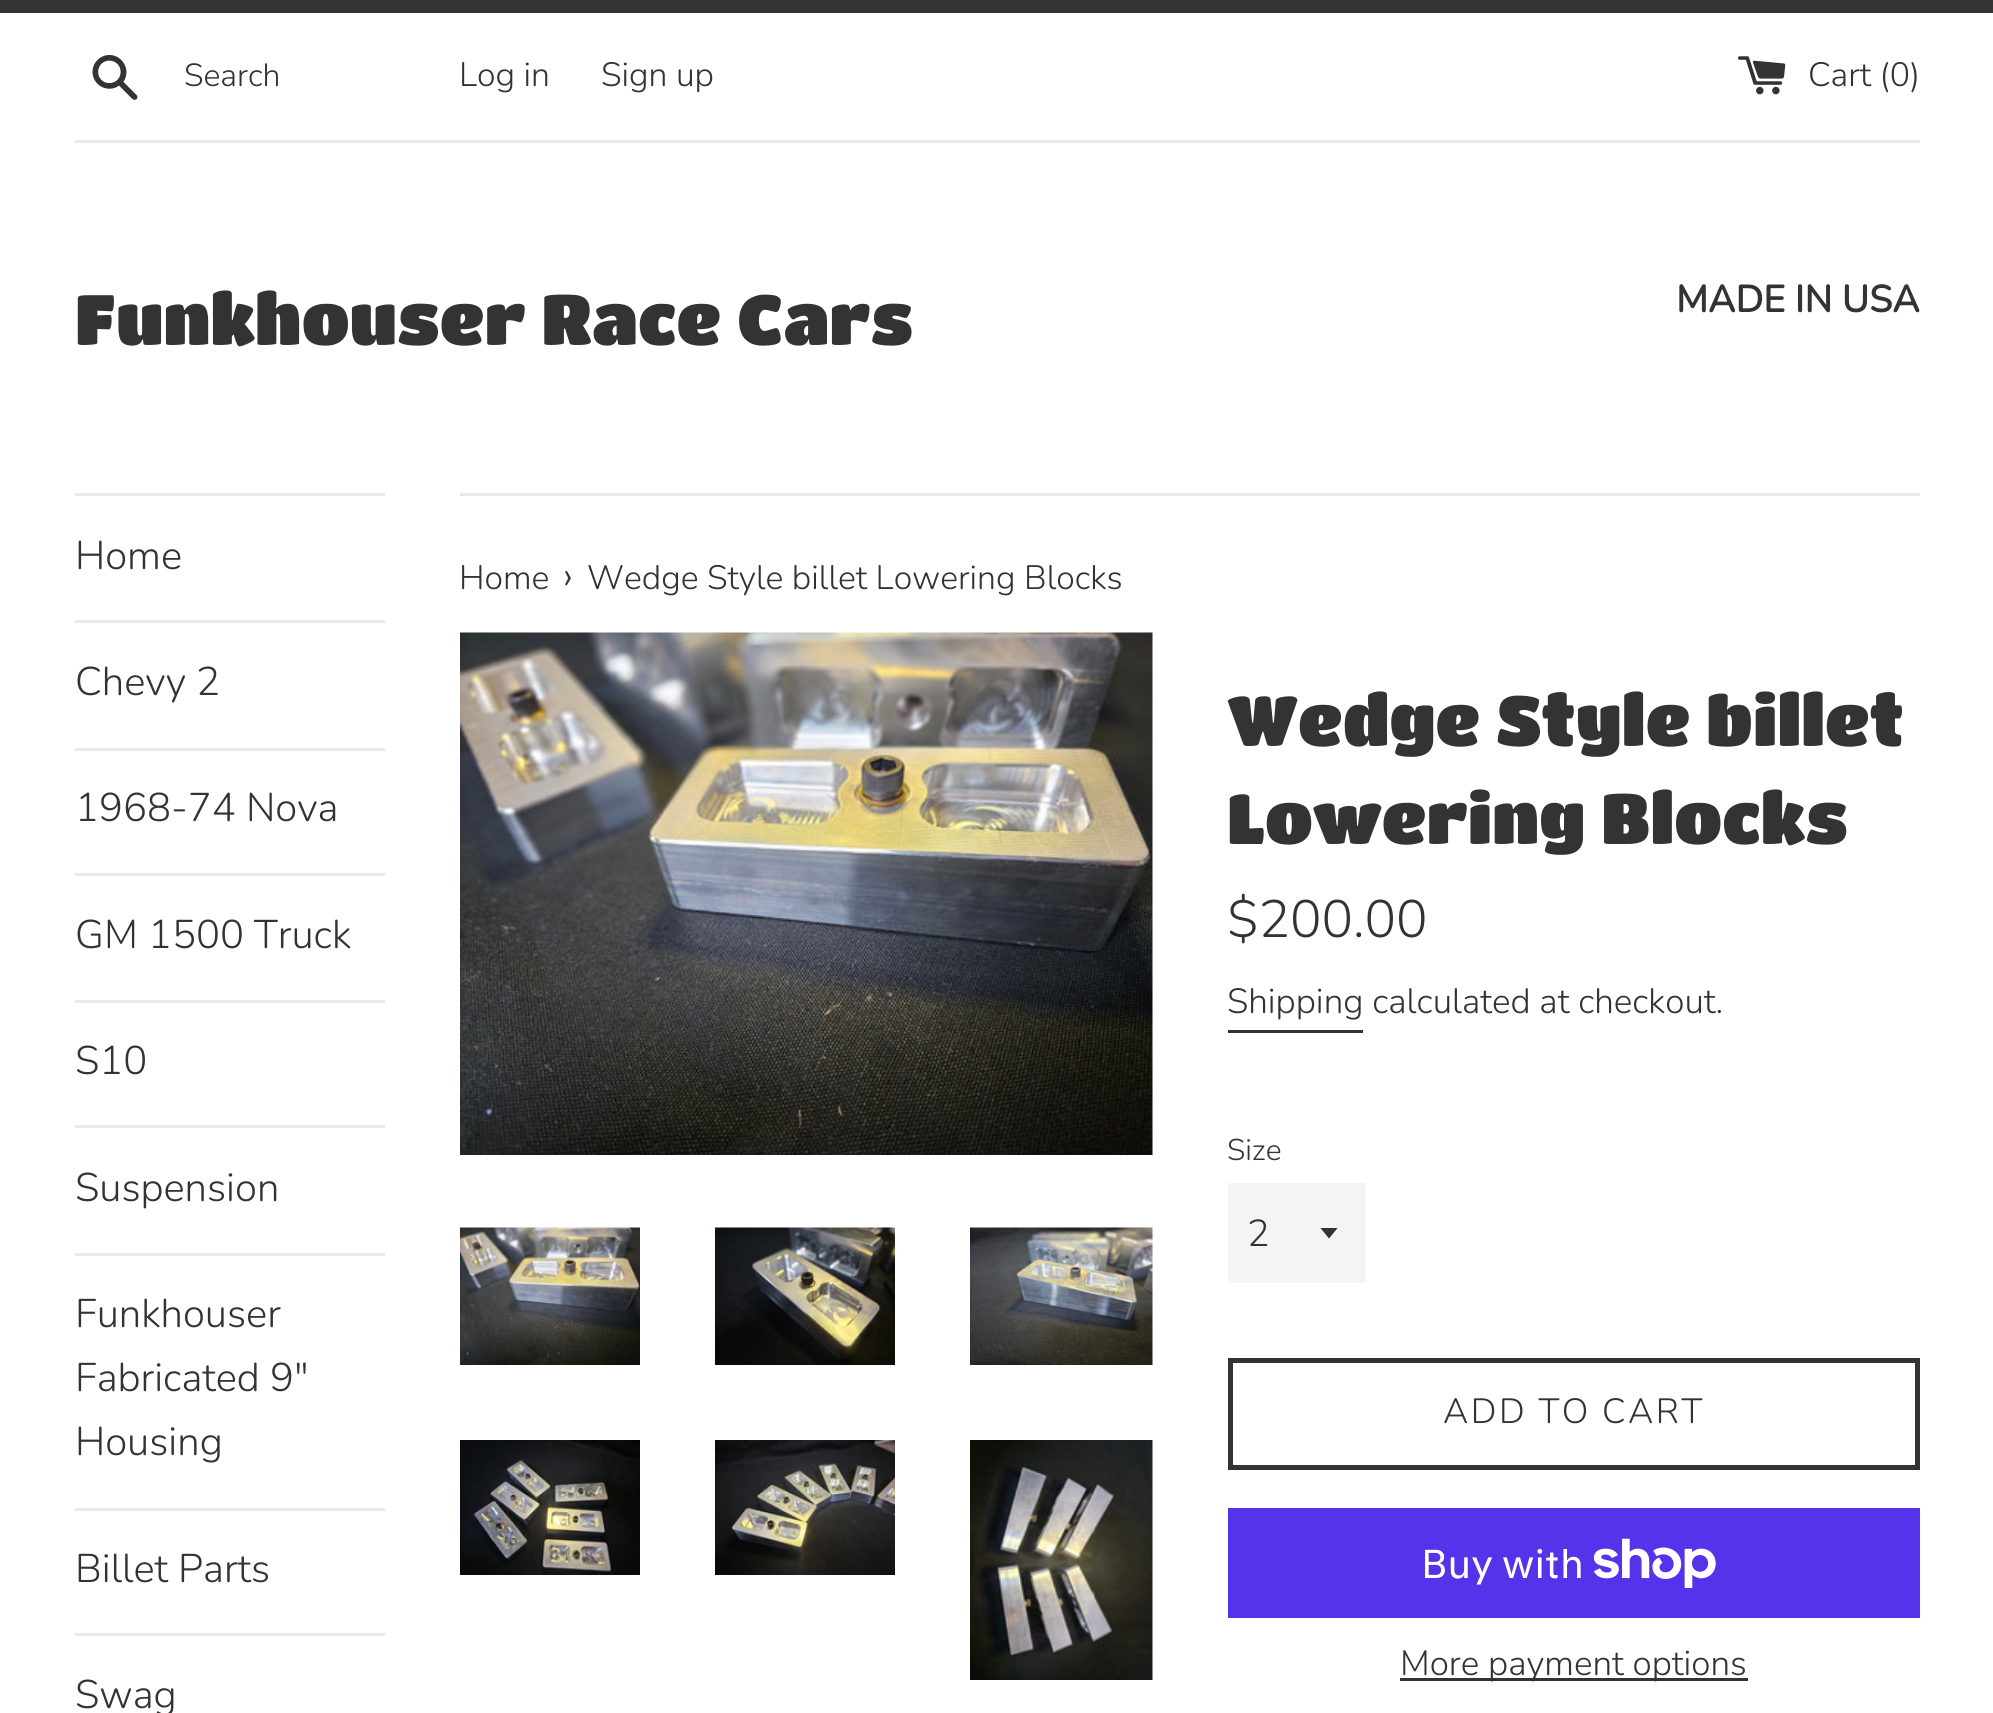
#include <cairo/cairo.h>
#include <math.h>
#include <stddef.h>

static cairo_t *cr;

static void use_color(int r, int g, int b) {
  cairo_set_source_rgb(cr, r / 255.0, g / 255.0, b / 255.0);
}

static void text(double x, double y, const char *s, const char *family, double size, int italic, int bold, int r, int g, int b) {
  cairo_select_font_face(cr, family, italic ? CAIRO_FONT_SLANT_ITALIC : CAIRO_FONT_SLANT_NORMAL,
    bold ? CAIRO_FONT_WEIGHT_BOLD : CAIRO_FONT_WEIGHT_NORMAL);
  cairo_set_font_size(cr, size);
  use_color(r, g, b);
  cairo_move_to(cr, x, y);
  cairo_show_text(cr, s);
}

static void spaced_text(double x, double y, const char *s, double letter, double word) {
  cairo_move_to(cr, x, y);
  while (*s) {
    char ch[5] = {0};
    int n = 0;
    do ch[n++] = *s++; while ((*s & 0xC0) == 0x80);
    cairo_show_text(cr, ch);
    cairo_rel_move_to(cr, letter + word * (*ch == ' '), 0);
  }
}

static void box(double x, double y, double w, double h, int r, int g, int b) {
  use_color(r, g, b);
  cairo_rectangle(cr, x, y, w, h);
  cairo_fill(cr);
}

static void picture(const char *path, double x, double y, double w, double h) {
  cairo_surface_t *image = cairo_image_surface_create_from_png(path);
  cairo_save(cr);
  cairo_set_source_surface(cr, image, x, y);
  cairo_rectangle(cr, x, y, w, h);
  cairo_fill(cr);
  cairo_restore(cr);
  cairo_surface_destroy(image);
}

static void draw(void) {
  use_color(255, 255, 255);
  cairo_paint(cr);
  box(0, 0, 1993, 13, 51, 51, 51);
  picture("img_01.png", 92, 55, 46, 45);
  picture("img_02.png", 1738, 56, 48, 39);
  box(75, 140, 1845, 3, 232, 232, 232);
  box(75, 493, 310, 3, 232, 232, 232);
  box(75, 620, 310, 3, 232, 232, 232);
  box(75, 748, 310, 3, 232, 232, 232);
  box(75, 873, 310, 3, 232, 232, 232);
  box(75, 1000, 310, 3, 232, 232, 232);
  box(75, 1125, 310, 3, 232, 232, 232);
  box(75, 1253, 310, 3, 232, 232, 232);
  box(75, 1508, 310, 3, 232, 232, 232);
  box(75, 1633, 310, 3, 232, 232, 232);
  box(460, 493, 1460, 3, 232, 232, 232);
  picture("img_03.png", 460, 632, 693, 523);
  picture("img_04.png", 460, 1227, 180, 138);
  picture("img_05.png", 715, 1227, 180, 138);
  picture("img_06.png", 970, 1227, 183, 138);
  picture("img_07.png", 460, 1440, 180, 135);
  picture("img_08.png", 715, 1440, 180, 135);
  picture("img_09.png", 970, 1440, 183, 240);
  box(1228, 1030, 135, 3, 51, 51, 51);
  box(1228, 1183, 137, 100, 244, 244, 244);
  cairo_save(cr);
  cairo_rectangle(cr, 1320, 1228, 20, 12);
  cairo_clip(cr);
  use_color(51, 51, 51);
  cairo_new_path(cr);
  cairo_move_to(cr, 1320, 1227.5);
  cairo_line_to(cr, 1329, 1238.5);
  cairo_line_to(cr, 1338, 1227.5);
  cairo_close_path(cr);
  cairo_fill(cr);
  cairo_restore(cr);
  cairo_rectangle(cr, 1230.5, 1360.5, 687, 107);
  use_color(51, 51, 51);
  cairo_set_line_width(cr, 5);
  cairo_stroke(cr);
  box(1228, 1508, 692, 110, 84, 51, 235);
  picture("img_10.png", 1593, 1538, 123, 50);
  box(1400, 1678, 348, 3, 51, 51, 51);
  text(184, 86, "Search", "Nunito Light", 32, 0, 0, 51, 51, 51);
  text(459, 86, "Log in", "Nunito Light", 33.75, 0, 0, 51, 51, 51);
  text(601, 86, "Sign up", "Nunito Light", 33.75, 0, 0, 51, 51, 51);
  text(1808, 86, "Cart (0)", "Nunito Light", 33.75, 0, 0, 51, 51, 51);
  text(75, 345, "Funkhouser Race Cars", "Titan One", 70, 0, 0, 51, 51, 51);
  text(1676, 312, "MADE IN USA", "Nunito", 37.5, 0, 1, 51, 51, 51);
  text(75, 569, "Home", "Nunito Light", 40, 0, 0, 51, 51, 51);
  text(75, 695, "Chevy 2", "Nunito Light", 40, 0, 0, 51, 51, 51);
  text(75, 821, "1968-74 Nova", "Nunito Light", 40, 0, 0, 51, 51, 51);
  text(75, 948, "GM 1500 Truck", "Nunito Light", 40, 0, 0, 51, 51, 51);
  text(75, 1074, "S10", "Nunito Light", 40, 0, 0, 51, 51, 51);
  text(75, 1201, "Suspension", "Nunito Light", 40, 0, 0, 51, 51, 51);
  text(75, 1327, "Funkhouser", "Nunito Light", 40, 0, 0, 51, 51, 51);
  text(75, 1391, "Fabricated 9\"", "Nunito Light", 40, 0, 0, 51, 51, 51);
  text(75, 1455, "Housing", "Nunito Light", 40, 0, 0, 51, 51, 51);
  text(75, 1582, "Billet Parts", "Nunito Light", 40, 0, 0, 51, 51, 51);
  text(75, 1708, "Swag", "Nunito Light", 40, 0, 0, 51, 51, 51);
  text(459, 589, "Home", "Nunito Light", 33.75, 0, 0, 51, 51, 51);
  text(563, 589, "›", "Nunito Light", 41, 0, 0, 51, 51, 51);
  text(587, 589, "Wedge Style billet Lowering Blocks", "Nunito Light", 33.75, 0, 0, 51, 51, 51);
  text(1227, 746, "Wedge Style billet", "Titan One", 70, 0, 0, 51, 51, 51);
  text(1227, 844, "Lowering Blocks", "Titan One", 70, 0, 0, 51, 51, 51);
  text(1227, 937, "$200.00", "Nunito Light", 52.5, 0, 0, 51, 51, 51);
  text(1227, 1013, "Shipping calculated at checkout.", "Nunito Light", 35, 0, 0, 51, 51, 51);
  text(1227, 1160, "Size", "Nunito Light", 30, 0, 0, 51, 51, 51);
  text(1247, 1246, "2", "Nunito Light", 37.5, 0, 0, 51, 51, 51);
  cairo_set_font_size(cr, 35);
  spaced_text(1443, 1423, "ADD TO CART", 2.5, 0);
  text(1421, 1578, "Buy with", "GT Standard", 40, 0, 0, 255, 255, 255);
  text(1400, 1675, "More payment options", "Nunito Light", 35, 0, 0, 51, 51, 51);
}

int main(void) {
  cairo_surface_t *surface = cairo_image_surface_create(CAIRO_FORMAT_RGB24, 1993, 1713);
  cr = cairo_create(surface);
  cairo_font_options_t *options = cairo_font_options_create();
  cairo_font_options_set_hint_metrics(options, CAIRO_HINT_METRICS_OFF);
  cairo_font_options_set_hint_style(options, CAIRO_HINT_STYLE_NONE);
  cairo_set_font_options(cr, options);
  cairo_set_miter_limit(cr, 4);
  draw();
  cairo_surface_write_to_png(surface, "out.png");
  cairo_font_options_destroy(options);
  cairo_destroy(cr);
  cairo_surface_destroy(surface);
  return 0;
}
